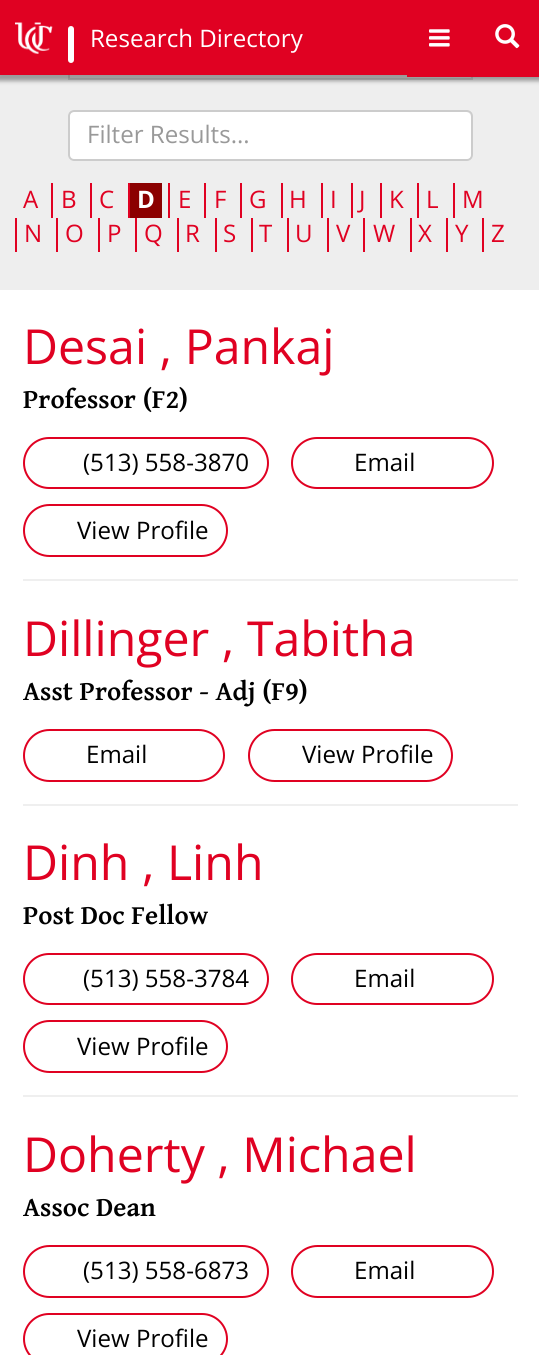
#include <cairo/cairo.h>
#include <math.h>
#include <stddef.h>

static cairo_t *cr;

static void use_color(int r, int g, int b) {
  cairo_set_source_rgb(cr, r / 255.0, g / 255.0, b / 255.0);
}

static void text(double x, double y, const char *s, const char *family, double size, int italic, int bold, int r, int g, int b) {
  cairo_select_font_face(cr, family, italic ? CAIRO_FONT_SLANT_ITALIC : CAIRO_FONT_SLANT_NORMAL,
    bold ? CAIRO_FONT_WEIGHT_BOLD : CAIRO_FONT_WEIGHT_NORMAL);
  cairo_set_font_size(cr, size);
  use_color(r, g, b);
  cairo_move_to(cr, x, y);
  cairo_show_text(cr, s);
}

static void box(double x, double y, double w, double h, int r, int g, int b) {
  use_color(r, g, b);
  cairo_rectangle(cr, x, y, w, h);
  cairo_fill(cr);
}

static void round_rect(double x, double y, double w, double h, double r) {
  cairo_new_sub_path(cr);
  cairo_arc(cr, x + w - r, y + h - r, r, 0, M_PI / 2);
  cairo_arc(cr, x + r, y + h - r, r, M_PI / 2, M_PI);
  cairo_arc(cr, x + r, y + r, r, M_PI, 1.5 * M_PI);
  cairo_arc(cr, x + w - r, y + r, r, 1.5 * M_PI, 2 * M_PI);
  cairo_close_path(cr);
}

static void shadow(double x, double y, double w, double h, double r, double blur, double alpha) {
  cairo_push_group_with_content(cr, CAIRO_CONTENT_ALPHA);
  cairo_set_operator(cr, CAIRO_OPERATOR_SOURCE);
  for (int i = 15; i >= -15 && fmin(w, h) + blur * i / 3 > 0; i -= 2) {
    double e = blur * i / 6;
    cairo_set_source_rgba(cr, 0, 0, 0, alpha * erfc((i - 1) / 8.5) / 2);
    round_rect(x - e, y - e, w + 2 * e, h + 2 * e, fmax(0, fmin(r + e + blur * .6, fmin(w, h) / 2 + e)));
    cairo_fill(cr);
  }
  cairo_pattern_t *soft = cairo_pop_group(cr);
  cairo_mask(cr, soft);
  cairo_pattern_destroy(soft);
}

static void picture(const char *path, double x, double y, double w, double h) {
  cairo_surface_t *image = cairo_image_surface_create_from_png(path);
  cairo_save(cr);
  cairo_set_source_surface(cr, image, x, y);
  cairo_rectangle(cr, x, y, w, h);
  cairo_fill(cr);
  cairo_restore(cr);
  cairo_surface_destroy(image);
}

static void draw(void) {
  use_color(255, 255, 255);
  cairo_paint(cr);
  box(0, 75, 539, 215, 238, 238, 238);
  cairo_rectangle(cr, 69, 30, 403, 49);
  use_color(211, 211, 211);
  cairo_stroke(cr);
  use_color(0, 0, 0);
  shadow(-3, 0, 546, 81, 0, 2, 0.35);
  box(0, 0, 407, 75, 224, 1, 34);
  picture("img_01.png", 15, 22, 38, 32);
  use_color(255, 255, 255);
  round_rect(68, 26, 6, 37, 3);
  cairo_fill(cr);
  box(407, 0, 132, 77, 224, 1, 34);
  picture("img_02.png", 495, 24, 25, 25);
  picture("img_03.png", 429, 29, 21, 18);
  use_color(255, 255, 255);
  round_rect(68, 110, 405, 51, 6);
  cairo_fill(cr);
  use_color(236, 236, 236);
  cairo_new_path(cr);
  cairo_move_to(cr, 74, 112);
  cairo_line_to(cr, 466, 112);
  cairo_curve_to(cr, 469, 112, 471, 115, 471, 117);
  cairo_line_to(cr, 471, 116);
  cairo_curve_to(cr, 471, 113, 469, 111, 466, 111);
  cairo_line_to(cr, 74, 111);
  cairo_curve_to(cr, 71, 111, 69, 113, 69, 116);
  cairo_line_to(cr, 69, 117);
  cairo_curve_to(cr, 69, 115, 71, 112, 74, 112);
  cairo_close_path(cr);
  cairo_fill(cr);
  round_rect(69, 111, 403, 49, 5);
  use_color(204, 204, 204);
  cairo_stroke(cr);
  box(51, 183, 2, 35, 224, 1, 34);
  box(90, 183, 2, 35, 224, 1, 34);
  box(130, 183, 32, 35, 139, 0, 0);
  box(128, 183, 2, 35, 224, 1, 34);
  box(168, 183, 2, 35, 224, 1, 34);
  box(204, 183, 2, 35, 224, 1, 34);
  box(240, 183, 2, 35, 224, 1, 34);
  box(281, 183, 2, 35, 224, 1, 34);
  box(321, 183, 2, 35, 224, 1, 34);
  box(351, 183, 2, 35, 224, 1, 34);
  box(380, 183, 2, 35, 224, 1, 34);
  box(417, 183, 2, 35, 224, 1, 34);
  box(453, 183, 2, 35, 224, 1, 34);
  box(15, 218, 2, 34, 224, 1, 34);
  box(56, 218, 2, 34, 224, 1, 34);
  box(98, 218, 2, 34, 224, 1, 34);
  box(135, 218, 2, 34, 224, 1, 34);
  box(177, 218, 2, 34, 224, 1, 34);
  box(215, 218, 2, 34, 224, 1, 34);
  box(251, 218, 2, 34, 224, 1, 34);
  box(287, 218, 2, 34, 224, 1, 34);
  box(327, 218, 2, 34, 224, 1, 34);
  box(363, 218, 2, 34, 224, 1, 34);
  box(410, 218, 2, 34, 224, 1, 34);
  box(446, 218, 2, 34, 224, 1, 34);
  box(482, 218, 2, 34, 224, 1, 34);
  box(23, 579, 495, 2, 239, 239, 239);
  round_rect(24, 438, 244, 50, 25);
  use_color(224, 1, 34);
  cairo_stroke(cr);
  round_rect(292, 438, 201, 50, 25);
  cairo_stroke(cr);
  round_rect(24, 505, 203, 51, 25.5);
  cairo_stroke(cr);
  box(23, 804, 495, 2, 239, 239, 239);
  round_rect(24, 730, 200, 51, 25.5);
  use_color(224, 1, 34);
  cairo_stroke(cr);
  round_rect(249, 730, 203, 51, 25.5);
  cairo_stroke(cr);
  box(23, 1095, 495, 2, 239, 239, 239);
  round_rect(24, 954, 244, 50, 25);
  use_color(224, 1, 34);
  cairo_stroke(cr);
  round_rect(292, 954, 201, 50, 25);
  cairo_stroke(cr);
  round_rect(24, 1021, 203, 51, 25.5);
  cairo_stroke(cr);
  round_rect(24, 1246, 244, 51, 25.5);
  cairo_stroke(cr);
  round_rect(292, 1246, 201, 51, 25.5);
  cairo_stroke(cr);
  round_rect(24, 1314, 203, 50, 25);
  cairo_stroke(cr);
  text(90, 47, "Research Directory", "Open Sans", 24.1, 0, 0, 255, 255, 255);
  text(87, 143, "Filter Results...", "Open Sans", 24.1, 0, 0, 153, 153, 153);
  text(23, 208, "A", "Open Sans", 24.1, 0, 0, 224, 1, 34);
  text(61, 208, "B", "Open Sans", 24.1, 0, 0, 224, 1, 34);
  text(99, 208, "C", "Open Sans", 24.1, 0, 0, 224, 1, 34);
  text(137, 208, "D", "Open Sans", 24.1, 0, 1, 255, 255, 255);
  text(178, 208, "E", "Open Sans", 24.1, 0, 0, 224, 1, 34);
  text(214, 208, "F", "Open Sans", 24.1, 0, 0, 224, 1, 34);
  text(249, 208, "G", "Open Sans", 24.1, 0, 0, 224, 1, 34);
  text(289, 208, "H", "Open Sans", 24.1, 0, 0, 224, 1, 34);
  text(330, 208, "I", "Open Sans", 24.1, 0, 0, 224, 1, 34);
  text(359, 208, "J", "Open Sans", 24.1, 0, 0, 224, 1, 34);
  text(389, 208, "K", "Open Sans", 24.1, 0, 0, 224, 1, 34);
  text(426, 208, "L", "Open Sans", 24.1, 0, 0, 224, 1, 34);
  text(462, 208, "M", "Open Sans", 24.1, 0, 0, 224, 1, 34);
  text(24, 242, "N", "Open Sans", 24.1, 0, 0, 224, 1, 34);
  text(65, 242, "O", "Open Sans", 24.1, 0, 0, 224, 1, 34);
  text(107, 242, "P", "Open Sans", 24.1, 0, 0, 224, 1, 34);
  text(144, 242, "Q", "Open Sans", 24.1, 0, 0, 224, 1, 34);
  text(185, 242, "R", "Open Sans", 24.1, 0, 0, 224, 1, 34);
  text(223, 242, "S", "Open Sans", 24.1, 0, 0, 224, 1, 34);
  text(259, 242, "T", "Open Sans", 24.1, 0, 0, 224, 1, 34);
  text(295, 242, "U", "Open Sans", 24.1, 0, 0, 224, 1, 34);
  text(336, 242, "V", "Open Sans", 24.1, 0, 0, 224, 1, 34);
  text(373, 242, "W", "Open Sans", 24.1, 0, 0, 224, 1, 34);
  text(418, 242, "X", "Open Sans", 24.1, 0, 0, 224, 1, 34);
  text(455, 242, "Y", "Open Sans", 24.1, 0, 0, 224, 1, 34);
  text(491, 242, "Z", "Open Sans", 24.1, 0, 0, 224, 1, 34);
  text(23, 364, "Desai , Pankaj", "Open Sans", 48.25, 0, 0, 224, 1, 34);
  text(23, 408, "Professor (F2)", "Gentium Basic", 27.1, 0, 1, 0, 0, 0);
  text(83, 471, "(513) 558-3870", "Open Sans", 24.1, 0, 0, 0, 0, 0);
  text(354, 471, "Email", "Open Sans", 24.1, 0, 0, 0, 0, 0);
  text(77, 539, "View Profile", "Open Sans", 24.1, 0, 0, 0, 0, 0);
  text(23, 656, "Dillinger , Tabitha", "Open Sans", 48.25, 0, 0, 224, 1, 34);
  text(23, 700, "Asst Professor - Adj (F9)", "Gentium Basic", 27.1, 0, 1, 0, 0, 0);
  text(86, 763, "Email", "Open Sans", 24.1, 0, 0, 0, 0, 0);
  text(302, 763, "View Profile", "Open Sans", 24.1, 0, 0, 0, 0, 0);
  text(23, 880, "Dinh , Linh", "Open Sans", 48.25, 0, 0, 224, 1, 34);
  text(23, 924, "Post Doc Fellow", "Gentium Basic", 27.1, 0, 1, 0, 0, 0);
  text(83, 987, "(513) 558-3784", "Open Sans", 24.1, 0, 0, 0, 0, 0);
  text(354, 987, "Email", "Open Sans", 24.1, 0, 0, 0, 0, 0);
  text(77, 1055, "View Profile", "Open Sans", 24.1, 0, 0, 0, 0, 0);
  text(23, 1172, "Doherty , Michael", "Open Sans", 48.25, 0, 0, 224, 1, 34);
  text(23, 1216, "Assoc Dean", "Gentium Basic", 27.1, 0, 1, 0, 0, 0);
  text(83, 1279, "(513) 558-6873", "Open Sans", 24.1, 0, 0, 0, 0, 0);
  text(354, 1279, "Email", "Open Sans", 24.1, 0, 0, 0, 0, 0);
  text(77, 1347, "View Profile", "Open Sans", 24.1, 0, 0, 0, 0, 0);
}

int main(void) {
  cairo_surface_t *surface = cairo_image_surface_create(CAIRO_FORMAT_RGB24, 539, 1355);
  cr = cairo_create(surface);
  cairo_font_options_t *options = cairo_font_options_create();
  cairo_font_options_set_hint_metrics(options, CAIRO_HINT_METRICS_OFF);
  cairo_font_options_set_hint_style(options, CAIRO_HINT_STYLE_NONE);
  cairo_set_font_options(cr, options);
  cairo_set_miter_limit(cr, 4);
  draw();
  cairo_surface_write_to_png(surface, "out.png");
  cairo_font_options_destroy(options);
  cairo_destroy(cr);
  cairo_surface_destroy(surface);
  return 0;
}
